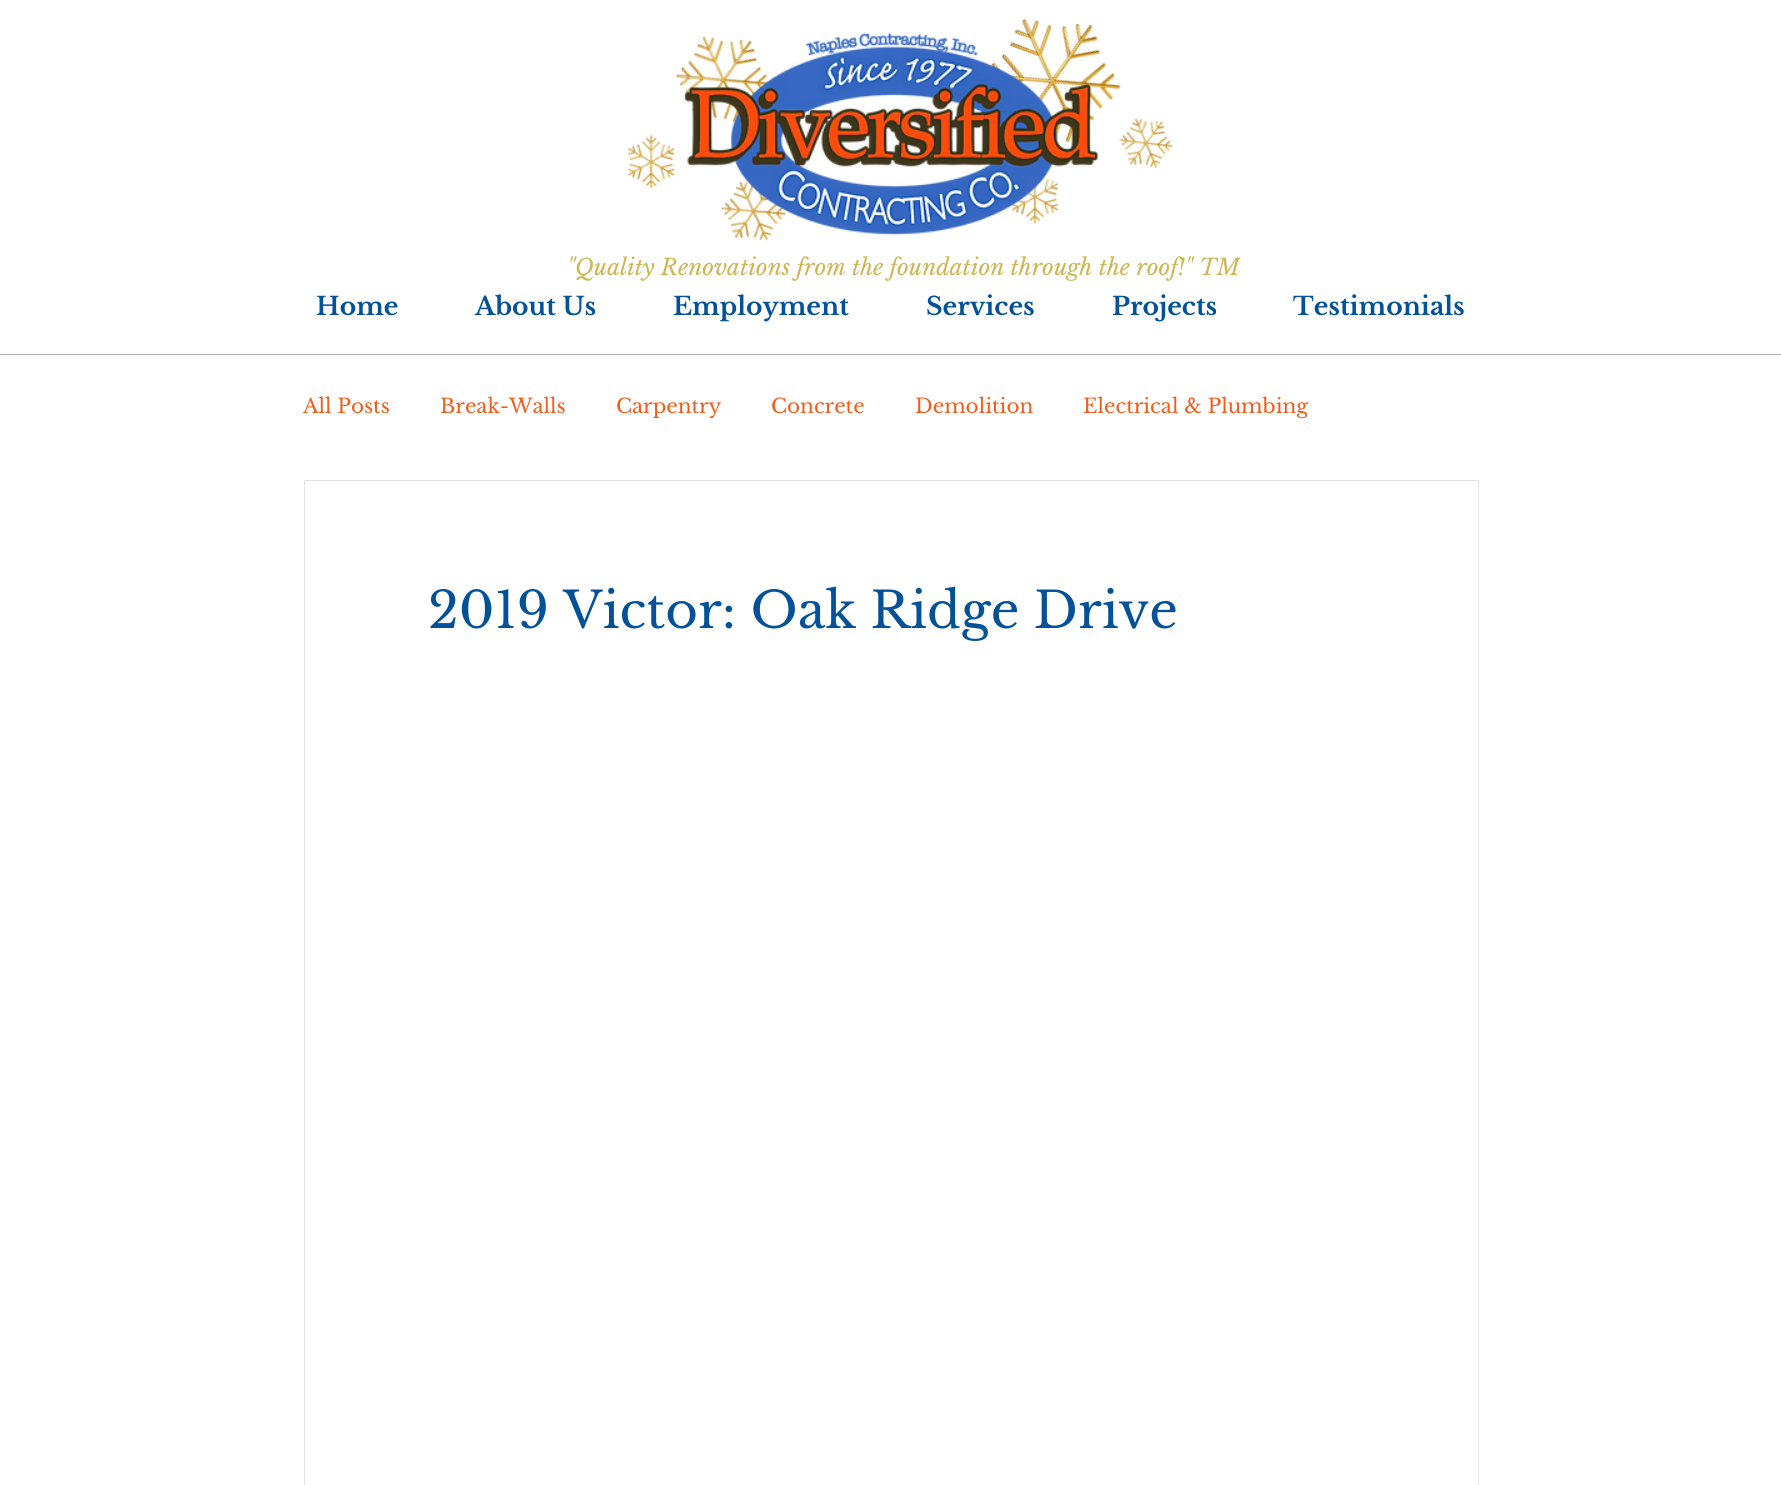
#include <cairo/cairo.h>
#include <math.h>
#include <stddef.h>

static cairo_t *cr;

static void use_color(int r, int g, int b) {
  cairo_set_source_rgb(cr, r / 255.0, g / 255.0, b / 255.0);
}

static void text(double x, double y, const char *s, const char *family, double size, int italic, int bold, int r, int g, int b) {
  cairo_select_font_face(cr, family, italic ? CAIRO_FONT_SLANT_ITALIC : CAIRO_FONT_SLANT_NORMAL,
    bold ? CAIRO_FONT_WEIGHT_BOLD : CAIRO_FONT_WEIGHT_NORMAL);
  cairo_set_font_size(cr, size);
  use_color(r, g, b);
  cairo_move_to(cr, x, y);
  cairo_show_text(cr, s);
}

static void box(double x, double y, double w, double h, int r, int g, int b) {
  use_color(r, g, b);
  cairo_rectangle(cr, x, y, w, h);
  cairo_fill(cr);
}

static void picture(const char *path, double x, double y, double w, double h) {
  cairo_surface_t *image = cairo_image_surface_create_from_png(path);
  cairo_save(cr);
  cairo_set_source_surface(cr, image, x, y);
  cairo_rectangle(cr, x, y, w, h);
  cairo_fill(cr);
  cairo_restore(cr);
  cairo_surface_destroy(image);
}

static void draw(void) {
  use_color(255, 255, 255);
  cairo_paint(cr);
  picture("img_01.png", 991, 19, 131, 124);
  picture("img_03.png", 676, 36, 96, 88);
  picture("img_06.png", 721, 181, 66, 60);
  picture("img_07.png", 1011, 176, 48, 48);
  picture("img_02.png", 684, 32, 415, 204);
  picture("img_04.png", 627, 135, 48, 54);
  picture("img_05.png", 1119, 118, 55, 50);
  box(0, 354, 1781, 1, 175, 175, 175);
  cairo_rectangle(cr, 304.5, 480.5, 1174, 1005);
  use_color(227, 227, 227);
  cairo_set_line_width(cr, 1);
  cairo_stroke(cr);
  text(567, 275, "\"Quality Renovations from the foundation through the roof!\" TM", "Libre Baskerville", 22.5, 1, 0, 207, 182, 82);
  text(316, 315, "Home", "Libre Baskerville", 25, 0, 1, 3, 82, 153);
  text(475, 315, "About Us", "Libre Baskerville", 25, 0, 1, 3, 82, 153);
  text(673, 315, "Employment", "Libre Baskerville", 25, 0, 1, 3, 82, 153);
  text(926, 315, "Services", "Libre Baskerville", 25, 0, 1, 3, 82, 153);
  text(1112, 315, "Projects", "Libre Baskerville", 25, 0, 1, 3, 82, 153);
  text(1293, 315, "Testimonials", "Libre Baskerville", 25, 0, 1, 3, 82, 153);
  text(303, 413, "All Posts", "Libre Baskerville", 20, 0, 0, 244, 92, 27);
  text(440, 413, "Break-Walls", "Libre Baskerville", 20, 0, 0, 244, 92, 27);
  text(616, 413, "Carpentry", "Libre Baskerville", 20, 0, 0, 244, 92, 27);
  text(771, 413, "Concrete", "Libre Baskerville", 20, 0, 0, 244, 92, 27);
  text(915, 413, "Demolition", "Libre Baskerville", 20, 0, 0, 244, 92, 27);
  text(1083, 413, "Electrical & Plumbing", "Libre Baskerville", 20, 0, 0, 244, 92, 27);
  text(428, 628, "2019 Victor: Oak Ridge Drive", "Libre Baskerville", 50, 0, 0, 3, 82, 153);
}

int main(void) {
  cairo_surface_t *surface = cairo_image_surface_create(CAIRO_FORMAT_RGB24, 1781, 1485);
  cr = cairo_create(surface);
  cairo_font_options_t *options = cairo_font_options_create();
  cairo_font_options_set_hint_metrics(options, CAIRO_HINT_METRICS_OFF);
  cairo_font_options_set_hint_style(options, CAIRO_HINT_STYLE_NONE);
  cairo_set_font_options(cr, options);
  cairo_set_miter_limit(cr, 4);
  draw();
  cairo_surface_write_to_png(surface, "out.png");
  cairo_font_options_destroy(options);
  cairo_destroy(cr);
  cairo_surface_destroy(surface);
  return 0;
}
